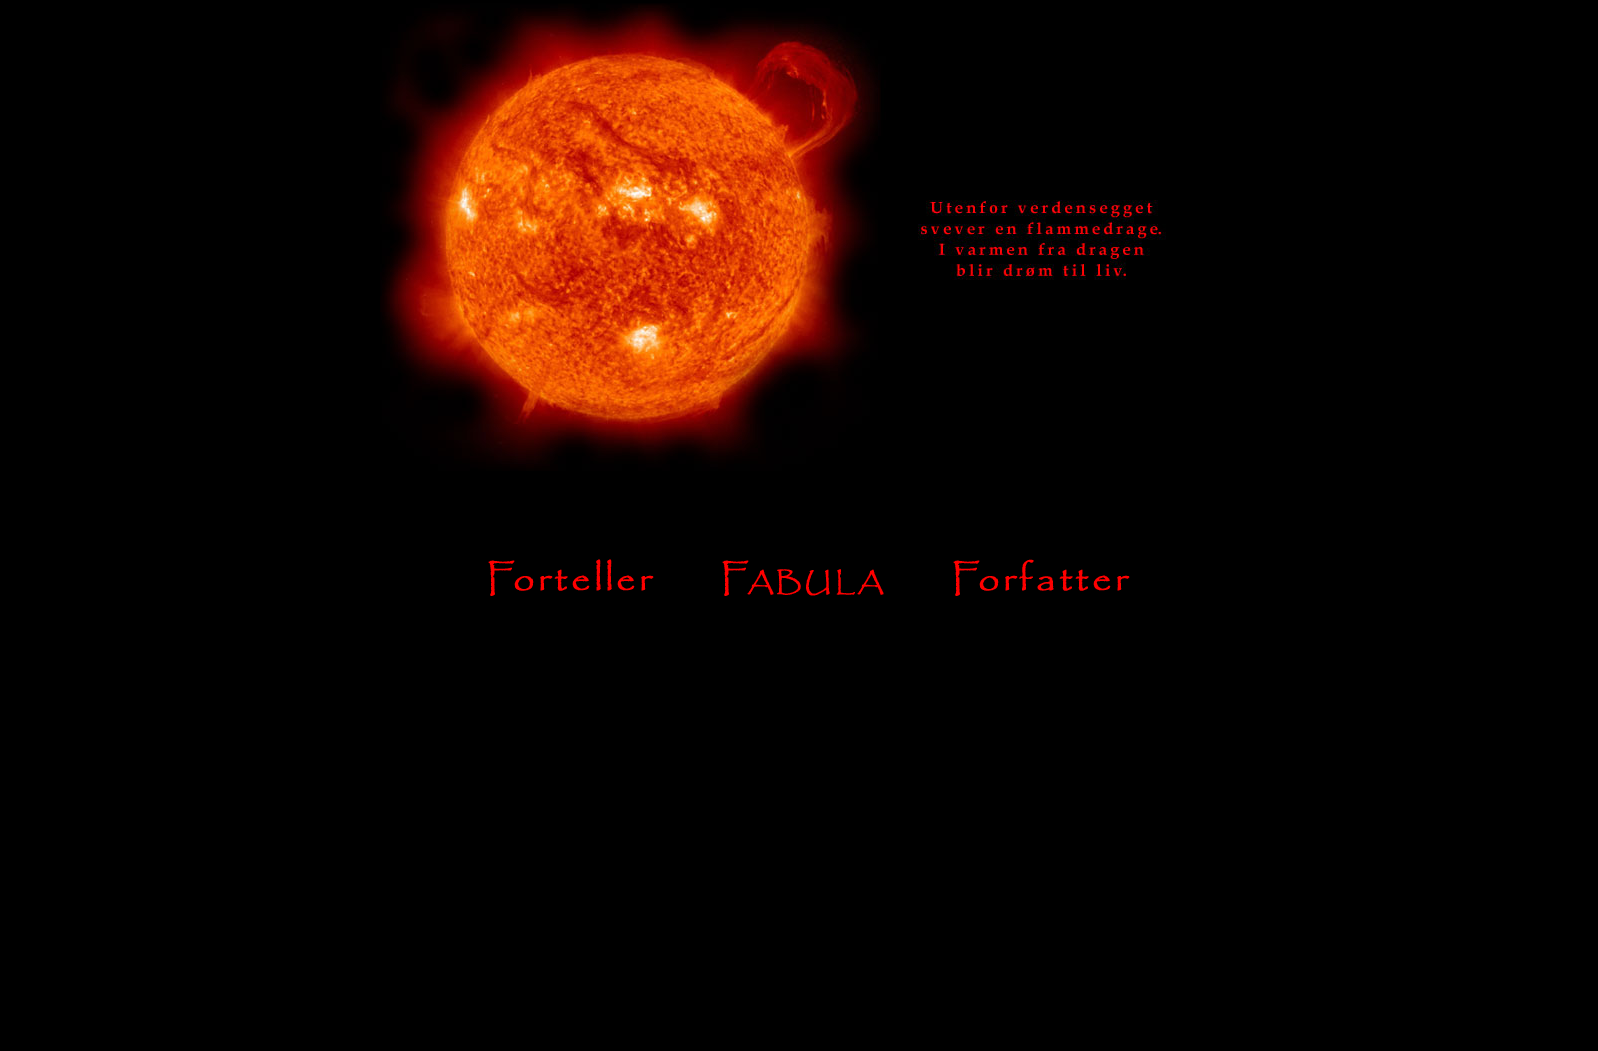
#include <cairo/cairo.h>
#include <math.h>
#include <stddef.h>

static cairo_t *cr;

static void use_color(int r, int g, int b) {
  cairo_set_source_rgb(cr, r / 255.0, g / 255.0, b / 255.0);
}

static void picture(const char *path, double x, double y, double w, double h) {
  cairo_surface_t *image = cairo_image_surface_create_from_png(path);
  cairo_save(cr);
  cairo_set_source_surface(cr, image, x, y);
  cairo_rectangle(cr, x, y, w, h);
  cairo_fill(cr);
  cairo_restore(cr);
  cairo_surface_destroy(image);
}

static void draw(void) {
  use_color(0, 0, 0);
  cairo_paint(cr);
  picture("img_01.png", 380, 3, 786, 468);
  picture("img_02.png", 488, 559, 166, 37);
  picture("img_03.png", 722, 560, 162, 36);
  picture("img_04.png", 953, 559, 177, 37);
}

int main(void) {
  cairo_surface_t *surface = cairo_image_surface_create(CAIRO_FORMAT_RGB24, 1598, 1051);
  cr = cairo_create(surface);
  cairo_font_options_t *options = cairo_font_options_create();
  cairo_font_options_set_hint_metrics(options, CAIRO_HINT_METRICS_OFF);
  cairo_font_options_set_hint_style(options, CAIRO_HINT_STYLE_NONE);
  cairo_set_font_options(cr, options);
  cairo_set_miter_limit(cr, 4);
  draw();
  cairo_surface_write_to_png(surface, "out.png");
  cairo_font_options_destroy(options);
  cairo_destroy(cr);
  cairo_surface_destroy(surface);
  return 0;
}
